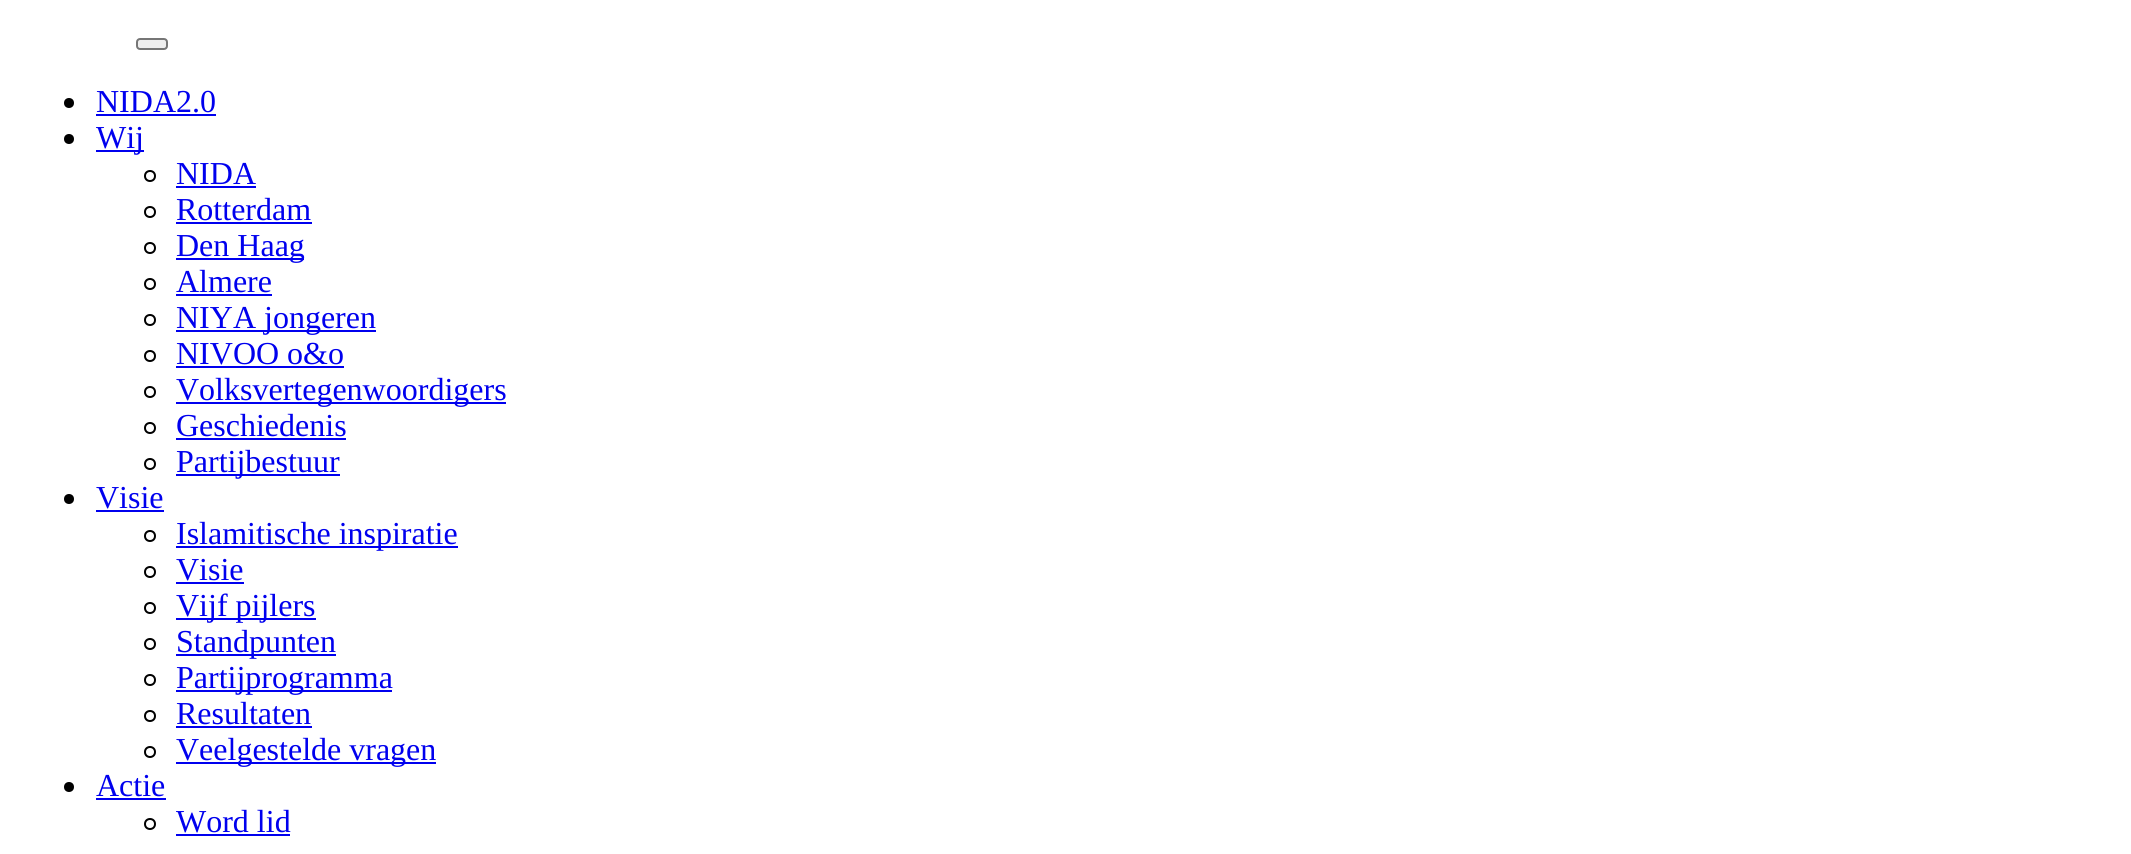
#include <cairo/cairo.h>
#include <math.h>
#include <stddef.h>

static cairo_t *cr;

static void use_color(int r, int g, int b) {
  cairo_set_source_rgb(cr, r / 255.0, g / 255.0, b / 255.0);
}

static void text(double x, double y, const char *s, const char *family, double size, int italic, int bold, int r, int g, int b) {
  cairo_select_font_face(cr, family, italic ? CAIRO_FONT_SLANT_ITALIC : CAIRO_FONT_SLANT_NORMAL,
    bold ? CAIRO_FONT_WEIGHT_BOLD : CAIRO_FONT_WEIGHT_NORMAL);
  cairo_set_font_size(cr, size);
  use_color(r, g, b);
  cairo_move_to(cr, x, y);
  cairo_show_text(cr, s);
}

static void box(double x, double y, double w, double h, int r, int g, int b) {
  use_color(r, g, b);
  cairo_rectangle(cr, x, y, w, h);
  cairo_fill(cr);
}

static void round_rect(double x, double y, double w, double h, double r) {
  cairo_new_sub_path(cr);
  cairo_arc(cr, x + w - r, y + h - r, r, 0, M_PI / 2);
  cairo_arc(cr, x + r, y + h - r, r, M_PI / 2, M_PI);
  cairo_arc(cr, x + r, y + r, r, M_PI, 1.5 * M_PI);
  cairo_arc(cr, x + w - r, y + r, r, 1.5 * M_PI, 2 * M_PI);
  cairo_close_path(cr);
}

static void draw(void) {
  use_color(255, 255, 255);
  cairo_paint(cr);
  use_color(239, 239, 239);
  round_rect(137, 39, 30, 10, 3);
  cairo_fill_preserve(cr);
  use_color(118, 118, 118);
  cairo_stroke(cr);
  use_color(0, 0, 0);
  cairo_arc(cr, 69, 103, 5, 0, 2 * M_PI);
  cairo_fill(cr);
  box(96, 114, 120, 2, 0, 0, 238);
  use_color(0, 0, 0);
  cairo_arc(cr, 69, 139, 5, 0, 2 * M_PI);
  cairo_fill(cr);
  box(96, 150, 48, 2, 0, 0, 238);
  cairo_arc(cr, 150, 176, 5, 0, 2 * M_PI);
  use_color(0, 0, 0);
  cairo_stroke(cr);
  box(176, 186, 80, 2, 0, 0, 238);
  cairo_arc(cr, 150, 212, 5, 0, 2 * M_PI);
  use_color(0, 0, 0);
  cairo_stroke(cr);
  box(176, 222, 136, 2, 0, 0, 238);
  cairo_arc(cr, 150, 248, 5, 0, 2 * M_PI);
  use_color(0, 0, 0);
  cairo_stroke(cr);
  box(176, 258, 128, 2, 0, 0, 238);
  cairo_arc(cr, 150, 284, 5, 0, 2 * M_PI);
  use_color(0, 0, 0);
  cairo_stroke(cr);
  box(176, 294, 96, 2, 0, 0, 238);
  cairo_arc(cr, 150, 320, 5, 0, 2 * M_PI);
  use_color(0, 0, 0);
  cairo_stroke(cr);
  box(176, 330, 200, 2, 0, 0, 238);
  cairo_arc(cr, 150, 356, 5, 0, 2 * M_PI);
  use_color(0, 0, 0);
  cairo_stroke(cr);
  box(176, 366, 168, 2, 0, 0, 238);
  cairo_arc(cr, 150, 392, 5, 0, 2 * M_PI);
  use_color(0, 0, 0);
  cairo_stroke(cr);
  box(176, 402, 330, 2, 0, 0, 238);
  cairo_arc(cr, 150, 428, 5, 0, 2 * M_PI);
  use_color(0, 0, 0);
  cairo_stroke(cr);
  box(176, 438, 170, 2, 0, 0, 238);
  cairo_arc(cr, 150, 464, 5, 0, 2 * M_PI);
  use_color(0, 0, 0);
  cairo_stroke(cr);
  box(176, 474, 164, 2, 0, 0, 238);
  use_color(0, 0, 0);
  cairo_arc(cr, 69, 499, 5, 0, 2 * M_PI);
  cairo_fill(cr);
  box(96, 510, 68, 2, 0, 0, 238);
  cairo_arc(cr, 150, 536, 5, 0, 2 * M_PI);
  use_color(0, 0, 0);
  cairo_stroke(cr);
  box(176, 546, 282, 2, 0, 0, 238);
  cairo_arc(cr, 150, 572, 5, 0, 2 * M_PI);
  use_color(0, 0, 0);
  cairo_stroke(cr);
  box(176, 582, 68, 2, 0, 0, 238);
  cairo_arc(cr, 150, 608, 5, 0, 2 * M_PI);
  use_color(0, 0, 0);
  cairo_stroke(cr);
  box(176, 618, 140, 2, 0, 0, 238);
  cairo_arc(cr, 150, 644, 5, 0, 2 * M_PI);
  use_color(0, 0, 0);
  cairo_stroke(cr);
  box(176, 654, 160, 2, 0, 0, 238);
  cairo_arc(cr, 150, 680, 5, 0, 2 * M_PI);
  use_color(0, 0, 0);
  cairo_stroke(cr);
  box(176, 690, 216, 2, 0, 0, 238);
  cairo_arc(cr, 150, 716, 5, 0, 2 * M_PI);
  use_color(0, 0, 0);
  cairo_stroke(cr);
  box(176, 726, 136, 2, 0, 0, 238);
  cairo_arc(cr, 150, 752, 5, 0, 2 * M_PI);
  use_color(0, 0, 0);
  cairo_stroke(cr);
  box(176, 762, 260, 2, 0, 0, 238);
  use_color(0, 0, 0);
  cairo_arc(cr, 69, 787, 5, 0, 2 * M_PI);
  cairo_fill(cr);
  box(96, 798, 70, 2, 0, 0, 238);
  cairo_arc(cr, 150, 824, 5, 0, 2 * M_PI);
  use_color(0, 0, 0);
  cairo_stroke(cr);
  box(176, 834, 114, 2, 0, 0, 238);
  text(96, 112, "NIDA2.0", "Liberation Serif", 32, 0, 0, 0, 0, 238);
  text(96, 148, "Wij", "Liberation Serif", 32, 0, 0, 0, 0, 238);
  text(176, 184, "NIDA", "Liberation Serif", 32, 0, 0, 0, 0, 238);
  text(176, 220, "Rotterdam", "Liberation Serif", 32, 0, 0, 0, 0, 238);
  text(176, 256, "Den Haag", "Liberation Serif", 32, 0, 0, 0, 0, 238);
  text(176, 292, "Almere", "Liberation Serif", 32, 0, 0, 0, 0, 238);
  text(176, 328, "NIYA jongeren", "Liberation Serif", 32, 0, 0, 0, 0, 238);
  text(176, 364, "NIVOO o&o", "Liberation Serif", 32, 0, 0, 0, 0, 238);
  text(176, 400, "Volksvertegenwoordigers", "Liberation Serif", 32, 0, 0, 0, 0, 238);
  text(176, 436, "Geschiedenis", "Liberation Serif", 32, 0, 0, 0, 0, 238);
  text(176, 472, "Partijbestuur", "Liberation Serif", 32, 0, 0, 0, 0, 238);
  text(96, 508, "Visie", "Liberation Serif", 32, 0, 0, 0, 0, 238);
  text(176, 544, "Islamitische inspiratie", "Liberation Serif", 32, 0, 0, 0, 0, 238);
  text(176, 580, "Visie", "Liberation Serif", 32, 0, 0, 0, 0, 238);
  text(176, 616, "Vijf pijlers", "Liberation Serif", 32, 0, 0, 0, 0, 238);
  text(176, 652, "Standpunten", "Liberation Serif", 32, 0, 0, 0, 0, 238);
  text(176, 688, "Partijprogramma", "Liberation Serif", 32, 0, 0, 0, 0, 238);
  text(176, 724, "Resultaten", "Liberation Serif", 32, 0, 0, 0, 0, 238);
  text(176, 760, "Veelgestelde vragen", "Liberation Serif", 32, 0, 0, 0, 0, 238);
  text(96, 796, "Actie", "Liberation Serif", 32, 0, 0, 0, 0, 238);
  text(176, 832, "Word lid", "Liberation Serif", 32, 0, 0, 0, 0, 238);
}

int main(void) {
  cairo_surface_t *surface = cairo_image_surface_create(CAIRO_FORMAT_RGB24, 2131, 854);
  cr = cairo_create(surface);
  cairo_font_options_t *options = cairo_font_options_create();
  cairo_font_options_set_hint_metrics(options, CAIRO_HINT_METRICS_OFF);
  cairo_font_options_set_hint_style(options, CAIRO_HINT_STYLE_NONE);
  cairo_set_font_options(cr, options);
  cairo_set_miter_limit(cr, 4);
  draw();
  cairo_surface_write_to_png(surface, "out.png");
  cairo_font_options_destroy(options);
  cairo_destroy(cr);
  cairo_surface_destroy(surface);
  return 0;
}
